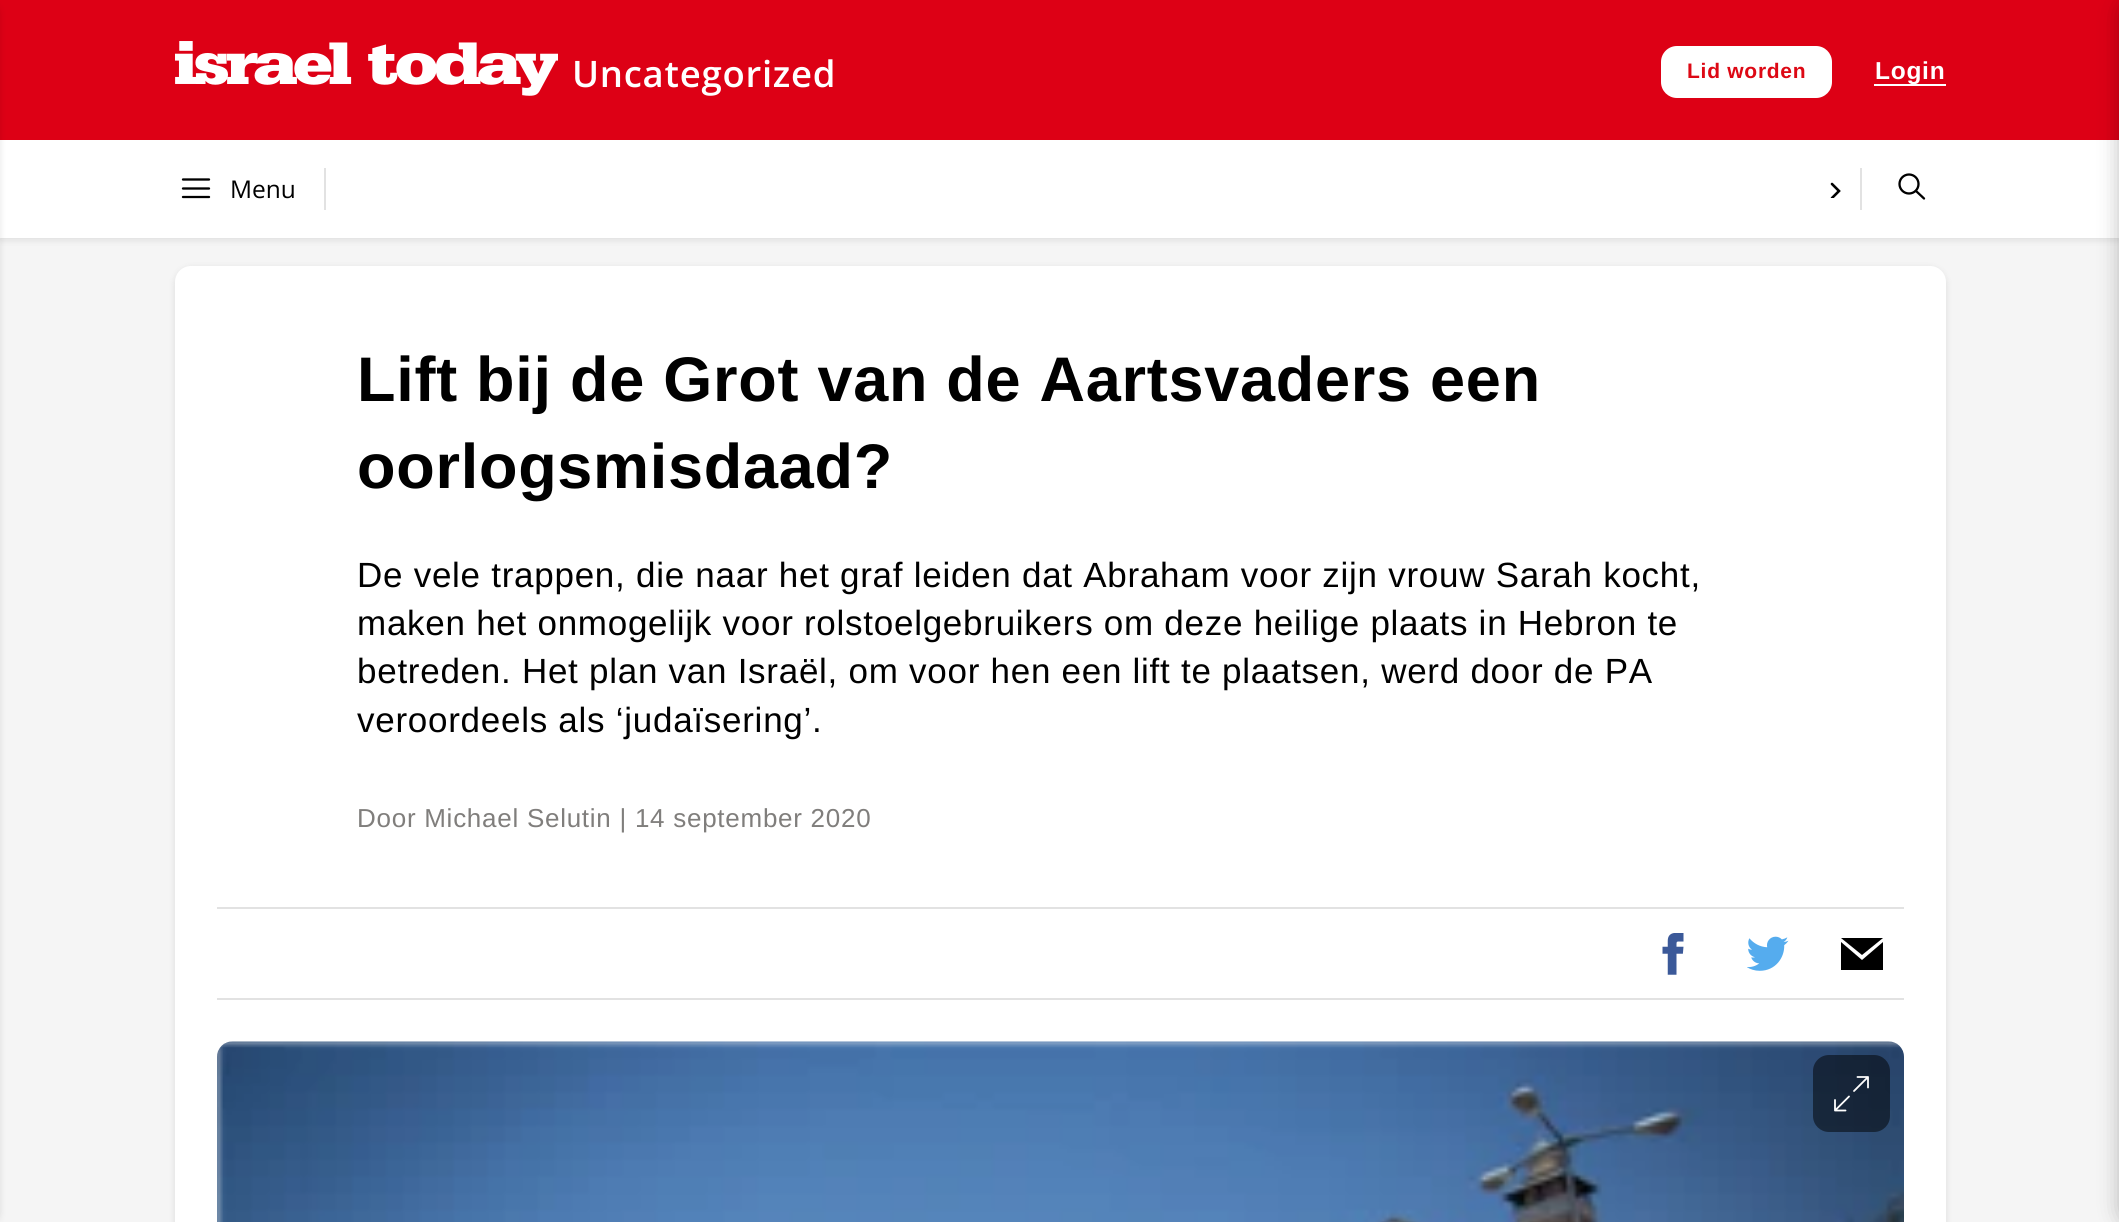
#include <cairo/cairo.h>
#include <math.h>
#include <stddef.h>

static cairo_t *cr;

static void use_color(int r, int g, int b) {
  cairo_set_source_rgb(cr, r / 255.0, g / 255.0, b / 255.0);
}

static void text(double x, double y, const char *s, const char *family, double size, int italic, int bold, int r, int g, int b) {
  cairo_select_font_face(cr, family, italic ? CAIRO_FONT_SLANT_ITALIC : CAIRO_FONT_SLANT_NORMAL,
    bold ? CAIRO_FONT_WEIGHT_BOLD : CAIRO_FONT_WEIGHT_NORMAL);
  cairo_set_font_size(cr, size);
  use_color(r, g, b);
  cairo_move_to(cr, x, y);
  cairo_show_text(cr, s);
}

static void spaced_text(double x, double y, const char *s, double letter, double word) {
  cairo_move_to(cr, x, y);
  while (*s) {
    char ch[5] = {0};
    int n = 0;
    do ch[n++] = *s++; while ((*s & 0xC0) == 0x80);
    cairo_show_text(cr, ch);
    cairo_rel_move_to(cr, letter + word * (*ch == ' '), 0);
  }
}

static void box(double x, double y, double w, double h, int r, int g, int b) {
  use_color(r, g, b);
  cairo_rectangle(cr, x, y, w, h);
  cairo_fill(cr);
}

static void round_rect(double x, double y, double w, double h, double r) {
  cairo_new_sub_path(cr);
  cairo_arc(cr, x + w - r, y + h - r, r, 0, M_PI / 2);
  cairo_arc(cr, x + r, y + h - r, r, M_PI / 2, M_PI);
  cairo_arc(cr, x + r, y + r, r, M_PI, 1.5 * M_PI);
  cairo_arc(cr, x + w - r, y + r, r, 1.5 * M_PI, 2 * M_PI);
  cairo_close_path(cr);
}

static void shadow(double x, double y, double w, double h, double r, double blur, double alpha) {
  cairo_push_group_with_content(cr, CAIRO_CONTENT_ALPHA);
  cairo_set_operator(cr, CAIRO_OPERATOR_SOURCE);
  for (int i = 15; i >= -15 && fmin(w, h) + blur * i / 3 > 0; i -= 2) {
    double e = blur * i / 6;
    cairo_set_source_rgba(cr, 0, 0, 0, alpha * erfc((i - 1) / 8.5) / 2);
    round_rect(x - e, y - e, w + 2 * e, h + 2 * e, fmax(0, fmin(r + e + blur * .6, fmin(w, h) / 2 + e)));
    cairo_fill(cr);
  }
  cairo_pattern_t *soft = cairo_pop_group(cr);
  cairo_mask(cr, soft);
  cairo_pattern_destroy(soft);
}

static void picture(const char *path, double x, double y, double w, double h) {
  cairo_surface_t *image = cairo_image_surface_create_from_png(path);
  cairo_save(cr);
  cairo_set_source_surface(cr, image, x, y);
  cairo_rectangle(cr, x, y, w, h);
  cairo_fill(cr);
  cairo_restore(cr);
  cairo_surface_destroy(image);
}

static void draw(void) {
  use_color(245, 245, 245);
  cairo_paint(cr);
  use_color(0, 0, 0);
  shadow(0, 142, 2119, 98, 0, 3.5, 0.1);
  box(0, 0, 2119, 140, 221, 0, 21);
  box(0, 140, 2119, 98, 255, 255, 255);
  use_color(0, 0, 0);
  shadow(-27, 2, 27, 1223, 16, 3.5, 0.1);
  picture("img_01.png", 175, 41, 383, 55);
  use_color(255, 255, 255);
  round_rect(1661, 46, 171, 52, 16);
  cairo_fill(cr);
  box(1874, 84, 72, 2, 255, 255, 255);
  use_color(0, 0, 0);
  shadow(2119, -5, 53, 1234, 21, 10.5, 0.25);
  cairo_new_path(cr);
  cairo_move_to(cr, 209, 179.5);
  cairo_line_to(cr, 183, 179.5);
  cairo_move_to(cr, 209, 188.5);
  cairo_line_to(cr, 183, 188.5);
  cairo_move_to(cr, 209, 197);
  cairo_line_to(cr, 183, 197);
  use_color(0, 0, 0);
  cairo_set_line_width(cr, 2.3);
  cairo_set_line_cap(cr, CAIRO_LINE_CAP_ROUND);
  cairo_stroke(cr);
  box(324, 168, 2, 42, 226, 226, 226);
  cairo_save(cr);
  cairo_rectangle(cr, 1822, 177, 21, 21);
  cairo_clip(cr);
  cairo_new_path(cr);
  cairo_move_to(cr, 1832, 184);
  cairo_line_to(cr, 1839, 191);
  cairo_line_to(cr, 1832, 198);
  use_color(0, 0, 0);
  cairo_set_line_width(cr, 2.6);
  cairo_stroke(cr);
  cairo_restore(cr);
  box(1860, 168, 2, 42, 226, 226, 226);
  cairo_arc(cr, 1909, 184, 9.5, 0, 2 * M_PI);
  use_color(0, 0, 0);
  cairo_set_line_cap(cr, CAIRO_LINE_CAP_BUTT);
  cairo_stroke(cr);
  cairo_new_path(cr);
  cairo_move_to(cr, 1916, 191);
  cairo_line_to(cr, 1924, 198.5);
  cairo_set_line_cap(cr, CAIRO_LINE_CAP_ROUND);
  cairo_stroke(cr);
  use_color(0, 0, 0);
  shadow(175, 268, 1771, 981, 16, 3.5, 0.1);
  use_color(255, 255, 255);
  round_rect(175, 266, 1771, 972, 16);
  cairo_fill(cr);
  box(217, 907, 1687, 2, 226, 226, 226);
  picture("img_02.png", 1662, 933, 22, 42);
  picture("img_03.png", 1747, 936, 42, 35);
  use_color(0, 0, 0);
  cairo_new_path(cr);
  cairo_move_to(cr, 1862, 955);
  cairo_line_to(cr, 1841, 938);
  cairo_line_to(cr, 1883, 938);
  cairo_close_path(cr);
  cairo_move_to(cr, 1862, 960);
  cairo_line_to(cr, 1841, 942);
  cairo_line_to(cr, 1841, 970);
  cairo_line_to(cr, 1883, 970);
  cairo_line_to(cr, 1883, 942);
  cairo_close_path(cr);
  cairo_fill(cr);
  box(217, 998, 1687, 2, 226, 226, 226);
  picture("img_04.png", 217, 1041, 1687, 181);
  cairo_set_source_rgba(cr, 0, 0, 0, 0.5);
  round_rect(1813, 1055, 77, 77, 16);
  cairo_fill(cr);
  cairo_new_path(cr);
  cairo_move_to(cr, 1857.5, 1077);
  cairo_line_to(cr, 1868, 1077);
  cairo_move_to(cr, 1868, 1077);
  cairo_line_to(cr, 1868, 1087.5);
  cairo_move_to(cr, 1868, 1077);
  cairo_line_to(cr, 1854, 1091);
  cairo_move_to(cr, 1845.5, 1110.5);
  cairo_line_to(cr, 1835, 1110.5);
  cairo_move_to(cr, 1835, 1110.5);
  cairo_line_to(cr, 1835, 1100);
  cairo_move_to(cr, 1835, 1110.5);
  cairo_line_to(cr, 1849, 1096.5);
  use_color(255, 255, 255);
  cairo_set_line_width(cr, 1.8);
  cairo_set_line_join(cr, CAIRO_LINE_JOIN_ROUND);
  cairo_stroke(cr);
  cairo_select_font_face(cr, "Open Sans SemiBold", CAIRO_FONT_SLANT_NORMAL, CAIRO_FONT_WEIGHT_NORMAL);
  cairo_set_font_size(cr, 36.5);
  spaced_text(572, 87, "Uncategorized", 0.73, 0);
  cairo_select_font_face(cr, "Liberation Sans", CAIRO_FONT_SLANT_NORMAL, CAIRO_FONT_WEIGHT_BOLD);
  cairo_set_font_size(cr, 21);
  use_color(221, 8, 20);
  spaced_text(1687, 78, "Lid worden", 0.73, 0);
  cairo_set_font_size(cr, 24.5);
  use_color(255, 255, 255);
  spaced_text(1875, 79, "Login", 0.73, 0);
  text(230, 198, "Menu", "Open Sans", 24.5, 0, 0, 0, 0, 0);
  cairo_select_font_face(cr, "Liberation Sans", CAIRO_FONT_SLANT_NORMAL, CAIRO_FONT_WEIGHT_BOLD);
  cairo_set_font_size(cr, 63);
  spaced_text(357, 401, "Lift bij de Grot van de Aartsvaders een", 0.73, 0);
  spaced_text(357, 488, "oorlogsmisdaad?", 0.73, 0);
  cairo_select_font_face(cr, "Liberation Sans", CAIRO_FONT_SLANT_NORMAL, CAIRO_FONT_WEIGHT_NORMAL);
  cairo_set_font_size(cr, 35);
  spaced_text(357, 587, "De vele trappen, die naar het graf leiden dat Abraham voor zijn vrouw Sarah kocht,", 0.73, 0);
  spaced_text(357, 635, "maken het onmogelijk voor rolstoelgebruikers om deze heilige plaats in Hebron te", 0.73, 0);
  spaced_text(357, 683, "betreden. Het plan van Israël, om voor hen een lift te plaatsen, werd door de PA", 0.73, 0);
  spaced_text(357, 732, "veroordeels als ‘judaïsering’.", 0.73, 0);
  cairo_set_font_size(cr, 26);
  use_color(128, 126, 124);
  spaced_text(357, 827, "Door Michael Selutin | 14 september 2020", 0.73, 0);
}

int main(void) {
  cairo_surface_t *surface = cairo_image_surface_create(CAIRO_FORMAT_RGB24, 2119, 1222);
  cr = cairo_create(surface);
  cairo_font_options_t *options = cairo_font_options_create();
  cairo_font_options_set_hint_metrics(options, CAIRO_HINT_METRICS_OFF);
  cairo_font_options_set_hint_style(options, CAIRO_HINT_STYLE_NONE);
  cairo_set_font_options(cr, options);
  cairo_set_miter_limit(cr, 4);
  draw();
  cairo_surface_write_to_png(surface, "out.png");
  cairo_font_options_destroy(options);
  cairo_destroy(cr);
  cairo_surface_destroy(surface);
  return 0;
}
